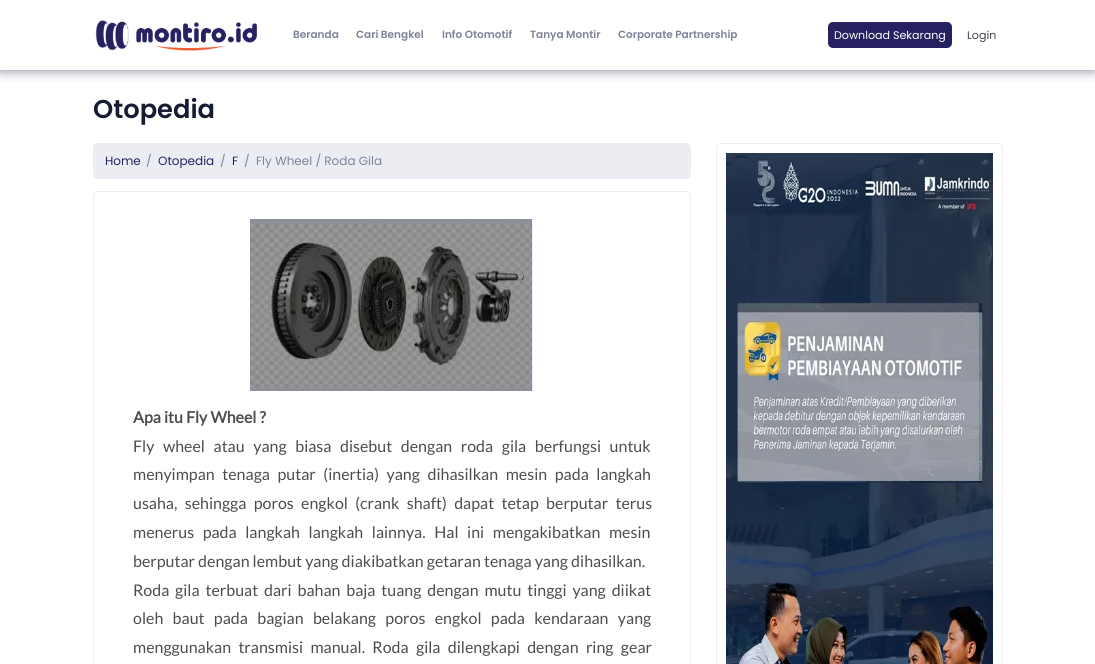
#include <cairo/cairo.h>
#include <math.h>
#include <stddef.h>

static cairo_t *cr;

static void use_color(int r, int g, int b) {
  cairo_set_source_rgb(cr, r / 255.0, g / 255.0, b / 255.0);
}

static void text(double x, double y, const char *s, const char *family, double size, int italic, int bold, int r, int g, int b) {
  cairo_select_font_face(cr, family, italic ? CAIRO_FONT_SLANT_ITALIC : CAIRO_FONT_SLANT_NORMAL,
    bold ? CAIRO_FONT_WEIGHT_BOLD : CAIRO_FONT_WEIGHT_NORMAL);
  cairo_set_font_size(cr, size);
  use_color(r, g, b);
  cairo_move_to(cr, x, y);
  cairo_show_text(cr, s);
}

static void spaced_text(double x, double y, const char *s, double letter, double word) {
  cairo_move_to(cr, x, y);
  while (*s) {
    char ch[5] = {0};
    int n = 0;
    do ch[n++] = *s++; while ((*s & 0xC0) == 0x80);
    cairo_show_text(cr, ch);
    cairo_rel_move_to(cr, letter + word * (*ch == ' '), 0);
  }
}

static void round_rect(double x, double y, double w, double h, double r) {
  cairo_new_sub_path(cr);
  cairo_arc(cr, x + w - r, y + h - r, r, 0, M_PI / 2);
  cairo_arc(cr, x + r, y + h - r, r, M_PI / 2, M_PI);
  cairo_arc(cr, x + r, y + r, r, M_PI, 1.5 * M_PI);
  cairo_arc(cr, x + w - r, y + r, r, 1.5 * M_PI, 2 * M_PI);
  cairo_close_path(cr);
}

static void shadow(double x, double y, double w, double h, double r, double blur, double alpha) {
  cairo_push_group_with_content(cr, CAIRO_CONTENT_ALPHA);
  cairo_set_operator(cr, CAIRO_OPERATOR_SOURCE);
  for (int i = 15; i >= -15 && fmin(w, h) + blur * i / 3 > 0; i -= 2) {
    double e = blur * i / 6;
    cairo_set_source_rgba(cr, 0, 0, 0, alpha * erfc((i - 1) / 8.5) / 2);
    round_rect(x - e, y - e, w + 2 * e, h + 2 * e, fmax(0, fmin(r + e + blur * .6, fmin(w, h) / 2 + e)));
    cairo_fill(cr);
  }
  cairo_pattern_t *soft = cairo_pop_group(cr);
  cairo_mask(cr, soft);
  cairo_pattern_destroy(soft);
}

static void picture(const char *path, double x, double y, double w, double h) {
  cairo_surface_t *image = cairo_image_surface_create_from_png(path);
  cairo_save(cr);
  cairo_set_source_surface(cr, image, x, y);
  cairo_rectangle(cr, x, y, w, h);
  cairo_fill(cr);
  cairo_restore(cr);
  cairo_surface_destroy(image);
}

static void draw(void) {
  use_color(255, 255, 255);
  cairo_paint(cr);
  cairo_save(cr);
  cairo_rectangle(cr, 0, 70, 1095, 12);
  cairo_clip(cr);
  use_color(123, 127, 145);
  shadow(0, 0, 1095, 70, 0, 6, 1);
  cairo_restore(cr);
  picture("img_01.png", 95, 20, 162, 31);
  use_color(38, 34, 97);
  round_rect(828, 22, 124, 26, 5);
  cairo_fill(cr);
  use_color(235, 237, 243);
  round_rect(93, 143, 598, 36, 5);
  cairo_fill(cr);
  round_rect(93.5, 191.5, 597, 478, 4.5);
  cairo_set_line_width(cr, 1);
  cairo_stroke(cr);
  picture("img_02.png", 250, 219, 283, 172);
  round_rect(716.5, 143.5, 286, 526, 4.5);
  cairo_stroke(cr);
  picture("img_03.png", 726, 153, 267, 511);
  text(293, 38, "Beranda", "Poppins SemiBold", 10.5, 0, 0, 126, 130, 153);
  text(356, 38, "Cari Bengkel", "Poppins SemiBold", 10.5, 0, 0, 126, 130, 153);
  text(442, 38, "Info Otomotif", "Poppins SemiBold", 10.5, 0, 0, 126, 130, 153);
  text(530, 38, "Tanya Montir", "Poppins SemiBold", 10.5, 0, 0, 126, 130, 153);
  text(618, 38, "Corporate Partnership", "Poppins SemiBold", 10.5, 0, 0, 126, 130, 153);
  text(834, 39, "Download Sekarang", "Poppins", 11.1, 0, 0, 255, 255, 255);
  text(967, 39, "Login", "Poppins", 11.1, 0, 0, 63, 66, 84);
  text(93, 118, "Otopedia", "Poppins SemiBold", 25.75, 0, 0, 24, 28, 50);
  text(105, 165, "Home", "Poppins", 12, 0, 0, 38, 34, 97);
  text(146, 165, "/", "Poppins", 12, 0, 0, 126, 130, 153);
  text(158, 165, "Otopedia", "Poppins", 12, 0, 0, 38, 34, 97);
  text(220, 165, "/", "Poppins", 12, 0, 0, 126, 130, 153);
  text(232, 165, "F", "Poppins", 12, 0, 0, 38, 34, 97);
  text(244, 165, "/", "Poppins", 12, 0, 0, 126, 130, 153);
  text(256, 165, "Fly Wheel / Roda Gila", "Poppins", 12, 0, 0, 126, 130, 153);
  text(133, 423, "Apa itu Fly Wheel ?", "Lato", 16, 0, 1, 77, 77, 77);
  cairo_select_font_face(cr, "Lato", CAIRO_FONT_SLANT_NORMAL, CAIRO_FONT_WEIGHT_NORMAL);
  spaced_text(133, 452, "Fly wheel atau yang biasa disebut dengan roda gila berfungsi untuk", 0, 5.5);
  spaced_text(133, 480, "menyimpan tenaga putar (inertia) yang dihasilkan mesin pada langkah", 0, 4.5);
  spaced_text(133, 509, "usaha, sehingga poros engkol (crank shaft) dapat tetap berputar terus", 0, 4.25);
  spaced_text(133, 538, "menerus pada langkah langkah lainnya. Hal ini mengakibatkan mesin", 0, 5.5);
  text(133, 567, "berputar dengan lembut yang diakibatkan getaran tenaga yang dihasilkan.", "Lato", 16, 0, 0, 77, 77, 77);
  spaced_text(133, 596, "Roda gila terbuat dari bahan baja tuang dengan mutu tinggi yang diikat", 0, 2.75);
  spaced_text(133, 624, "oleh baut pada bagian belakang poros engkol pada kendaraan yang", 0, 6.25);
  spaced_text(133, 653, "menggunakan transmisi manual. Roda gila dilengkapi dengan ring gear", 0, 4.25);
}

int main(void) {
  cairo_surface_t *surface = cairo_image_surface_create(CAIRO_FORMAT_RGB24, 1095, 664);
  cr = cairo_create(surface);
  cairo_font_options_t *options = cairo_font_options_create();
  cairo_font_options_set_hint_metrics(options, CAIRO_HINT_METRICS_OFF);
  cairo_font_options_set_hint_style(options, CAIRO_HINT_STYLE_NONE);
  cairo_set_font_options(cr, options);
  cairo_set_miter_limit(cr, 4);
  draw();
  cairo_surface_write_to_png(surface, "out.png");
  cairo_font_options_destroy(options);
  cairo_destroy(cr);
  cairo_surface_destroy(surface);
  return 0;
}
